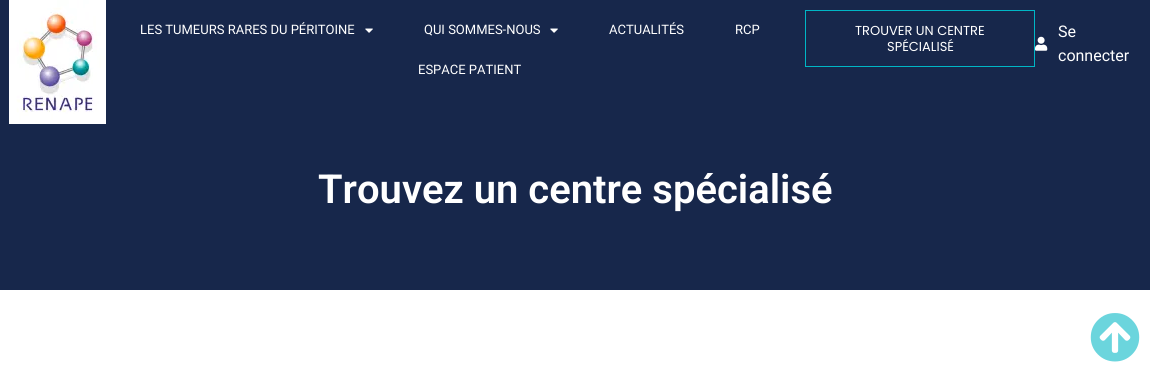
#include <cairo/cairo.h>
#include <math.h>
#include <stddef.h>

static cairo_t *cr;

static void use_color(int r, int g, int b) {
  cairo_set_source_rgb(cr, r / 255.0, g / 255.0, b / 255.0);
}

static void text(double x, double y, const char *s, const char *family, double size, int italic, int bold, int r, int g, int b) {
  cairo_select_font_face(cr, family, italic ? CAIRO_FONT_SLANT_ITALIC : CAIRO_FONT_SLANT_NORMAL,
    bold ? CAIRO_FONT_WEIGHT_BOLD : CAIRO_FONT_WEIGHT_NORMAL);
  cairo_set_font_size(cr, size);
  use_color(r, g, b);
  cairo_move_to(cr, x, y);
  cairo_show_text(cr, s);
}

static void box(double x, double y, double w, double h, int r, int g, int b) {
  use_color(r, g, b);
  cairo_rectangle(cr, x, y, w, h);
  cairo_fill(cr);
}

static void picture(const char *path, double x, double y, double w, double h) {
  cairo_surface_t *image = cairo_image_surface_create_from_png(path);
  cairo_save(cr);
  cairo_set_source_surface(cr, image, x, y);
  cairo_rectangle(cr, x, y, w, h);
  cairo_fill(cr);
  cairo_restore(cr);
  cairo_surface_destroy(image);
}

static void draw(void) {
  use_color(255, 255, 255);
  cairo_paint(cr);
  box(0, 0, 1150, 290, 23, 39, 75);
  picture("img_01.png", 9, 0, 97, 124);
  picture("img_02.png", 365, 28, 8, 5);
  picture("img_02.png", 550, 28, 8, 5);
  cairo_rectangle(cr, 805.5, 10.5, 229, 56);
  use_color(0, 182, 197);
  cairo_set_line_width(cr, 1);
  cairo_stroke(cr);
  picture("img_03.png", 1035, 36, 13, 15);
  picture("img_04.png", 1090, 313, 50, 49);
  text(140, 34, "LES TUMEURS RARES DU PÉRITOINE", "Roboto", 13, 0, 0, 255, 255, 255);
  text(424, 34, "QUI SOMMES-NOUS", "Roboto", 13, 0, 0, 255, 255, 255);
  text(609, 34, "ACTUALITÉS", "Roboto", 13, 0, 0, 255, 255, 255);
  text(735, 34, "RCP", "Roboto", 13, 0, 0, 255, 255, 255);
  text(418, 74, "ESPACE PATIENT", "Roboto", 13, 0, 0, 255, 255, 255);
  text(855, 35, "TROUVER UN CENTRE", "Poppins", 13, 0, 0, 255, 255, 255);
  text(887, 51, "SPÉCIALISÉ", "Poppins", 13, 0, 0, 255, 255, 255);
  text(1058, 37, "Se", "Roboto", 16, 0, 0, 255, 255, 255);
  text(1058, 61, "connecter", "Roboto", 16, 0, 0, 255, 255, 255);
  text(318, 203, "Trouvez un centre spécialisé", "Roboto SemiBold", 40, 0, 0, 255, 255, 255);
}

int main(void) {
  cairo_surface_t *surface = cairo_image_surface_create(CAIRO_FORMAT_RGB24, 1150, 368);
  cr = cairo_create(surface);
  cairo_font_options_t *options = cairo_font_options_create();
  cairo_font_options_set_hint_metrics(options, CAIRO_HINT_METRICS_OFF);
  cairo_font_options_set_hint_style(options, CAIRO_HINT_STYLE_NONE);
  cairo_set_font_options(cr, options);
  cairo_set_miter_limit(cr, 4);
  draw();
  cairo_surface_write_to_png(surface, "out.png");
  cairo_font_options_destroy(options);
  cairo_destroy(cr);
  cairo_surface_destroy(surface);
  return 0;
}
